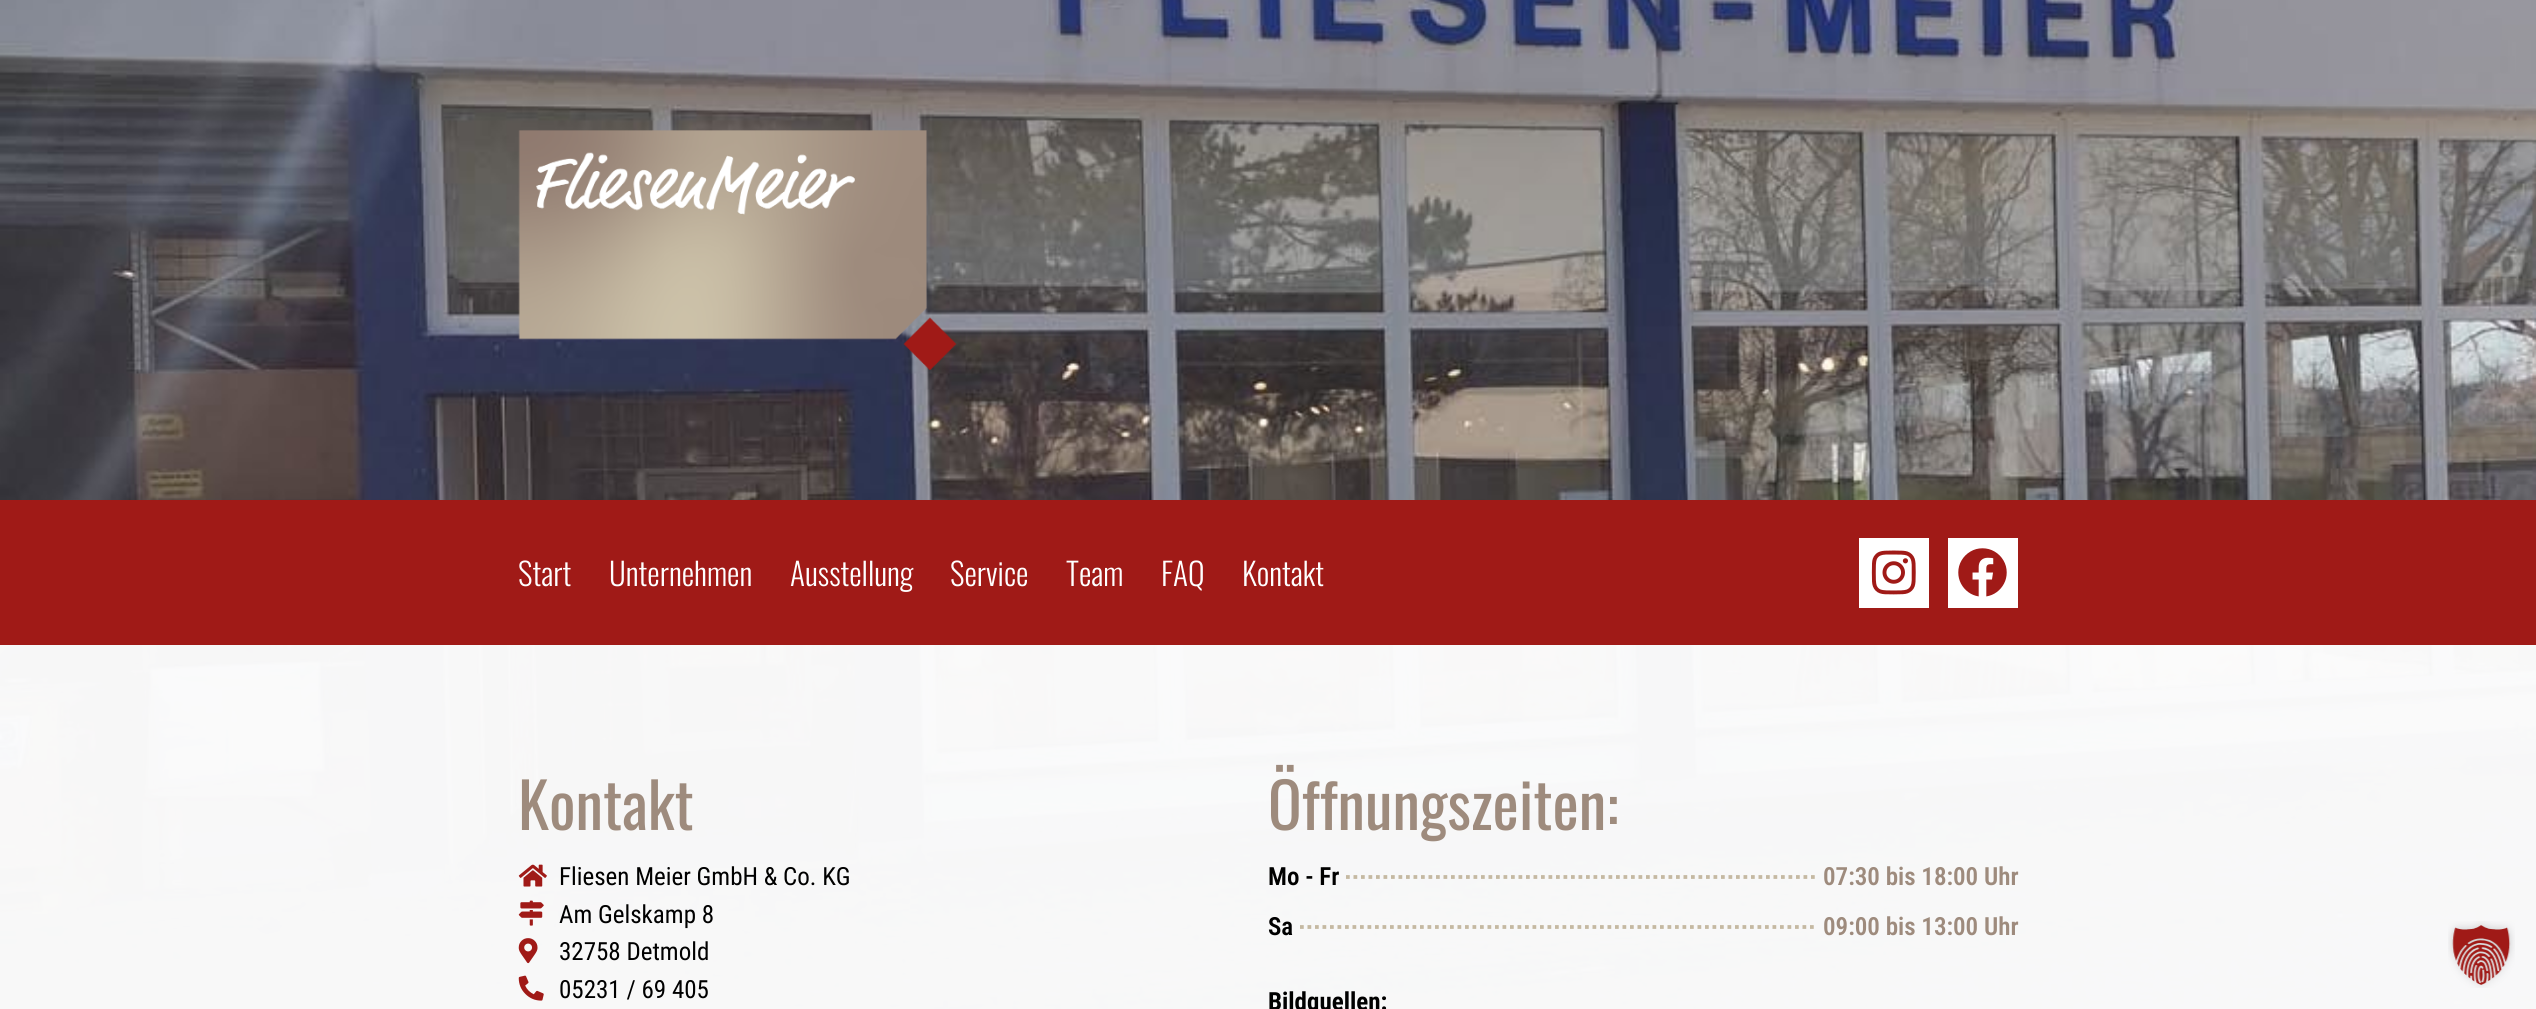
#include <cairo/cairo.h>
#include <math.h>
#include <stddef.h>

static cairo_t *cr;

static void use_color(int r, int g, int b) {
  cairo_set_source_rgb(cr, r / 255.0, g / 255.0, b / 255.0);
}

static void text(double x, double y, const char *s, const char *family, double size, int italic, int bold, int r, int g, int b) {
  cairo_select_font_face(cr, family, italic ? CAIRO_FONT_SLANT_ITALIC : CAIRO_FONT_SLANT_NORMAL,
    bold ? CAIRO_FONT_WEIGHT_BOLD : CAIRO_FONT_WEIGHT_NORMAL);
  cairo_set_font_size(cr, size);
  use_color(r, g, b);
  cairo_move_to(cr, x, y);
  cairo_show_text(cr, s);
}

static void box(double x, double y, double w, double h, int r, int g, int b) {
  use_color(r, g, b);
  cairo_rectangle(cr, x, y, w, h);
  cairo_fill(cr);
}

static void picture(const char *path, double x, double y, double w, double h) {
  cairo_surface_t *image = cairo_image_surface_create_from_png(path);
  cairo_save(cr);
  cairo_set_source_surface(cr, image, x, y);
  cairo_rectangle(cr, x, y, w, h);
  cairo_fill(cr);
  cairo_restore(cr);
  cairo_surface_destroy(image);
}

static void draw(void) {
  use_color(255, 255, 255);
  cairo_paint(cr);
  picture("img_01.png", 0, 0, 2536, 1009);
  picture("img_02.png", 518, 130, 439, 240);
  box(0, 500, 2536, 145, 160, 26, 23);
  box(1859, 538, 70, 70, 255, 255, 255);
  picture("img_03.png", 1871, 550, 45, 45);
  box(1948, 538, 70, 70, 255, 255, 255);
  picture("img_04.png", 1958, 548, 49, 49);
  cairo_set_source_rgba(cr, 1, 1, 1, 0.96);
  cairo_rectangle(cr, 0, 645, 2536, 364);
  cairo_fill(cr);
  picture("img_05.png", 518, 864, 29, 23);
  picture("img_06.png", 518, 900, 26, 26);
  picture("img_07.png", 518, 938, 20, 26);
  picture("img_08.png", 518, 975, 26, 26);
  cairo_new_path(cr);
  cairo_move_to(cr, 1346, 877);
  cairo_line_to(cr, 1816, 877);
  use_color(197, 185, 162);
  cairo_set_line_width(cr, 3.8);
  cairo_set_dash(cr, (double[]){3.75, 3.75}, 2, 0);
  cairo_stroke(cr);
  cairo_new_path(cr);
  cairo_move_to(cr, 1300, 927);
  cairo_line_to(cr, 1816, 927);
  cairo_stroke(cr);
  picture("img_09.png", 2448, 921, 67, 67);
  text(518, 586, "Start", "Oswald Light", 31.25, 0, 0, 255, 255, 255);
  text(609, 586, "Unternehmen", "Oswald Light", 31.25, 0, 0, 255, 255, 255);
  text(790, 586, "Ausstellung", "Oswald Light", 31.25, 0, 0, 255, 255, 255);
  text(950, 586, "Service", "Oswald Light", 31.25, 0, 0, 255, 255, 255);
  text(1066, 586, "Team", "Oswald Light", 31.25, 0, 0, 255, 255, 255);
  text(1161, 586, "FAQ", "Oswald Light", 31.25, 0, 0, 255, 255, 255);
  text(1242, 586, "Kontakt", "Oswald Light", 31.25, 0, 0, 255, 255, 255);
  text(518, 830, "Kontakt", "Oswald", 62.5, 0, 0, 158, 139, 125);
  text(559, 885, "Fliesen Meier GmbH & Co. KG", "Roboto Condensed", 25, 0, 0, 0, 0, 0);
  text(559, 923, "Am Gelskamp 8", "Roboto Condensed", 25, 0, 0, 0, 0, 0);
  text(559, 960, "32758 Detmold", "Roboto Condensed", 25, 0, 0, 0, 0, 0);
  text(559, 998, "05231 / 69 405", "Roboto Condensed", 25, 0, 0, 0, 0, 0);
  text(1268, 830, "Öffnungszeiten:", "Oswald", 62.5, 0, 0, 158, 139, 125);
  text(1268, 885, "Mo - Fr", "Roboto Condensed SemiBold", 25, 0, 0, 0, 0, 0);
  text(1823, 885, "07:30 bis 18:00 Uhr", "Roboto Condensed SemiBold", 25, 0, 0, 158, 139, 125);
  text(1268, 935, "Sa", "Roboto Condensed SemiBold", 25, 0, 0, 0, 0, 0);
  text(1823, 935, "09:00 bis 13:00 Uhr", "Roboto Condensed SemiBold", 25, 0, 0, 158, 139, 125);
  text(1268, 1010, "Bildquellen:", "Roboto Condensed", 25, 0, 1, 0, 0, 0);
}

int main(void) {
  cairo_surface_t *surface = cairo_image_surface_create(CAIRO_FORMAT_RGB24, 2536, 1009);
  cr = cairo_create(surface);
  cairo_font_options_t *options = cairo_font_options_create();
  cairo_font_options_set_hint_metrics(options, CAIRO_HINT_METRICS_OFF);
  cairo_font_options_set_hint_style(options, CAIRO_HINT_STYLE_NONE);
  cairo_set_font_options(cr, options);
  cairo_set_miter_limit(cr, 4);
  draw();
  cairo_surface_write_to_png(surface, "out.png");
  cairo_font_options_destroy(options);
  cairo_destroy(cr);
  cairo_surface_destroy(surface);
  return 0;
}
